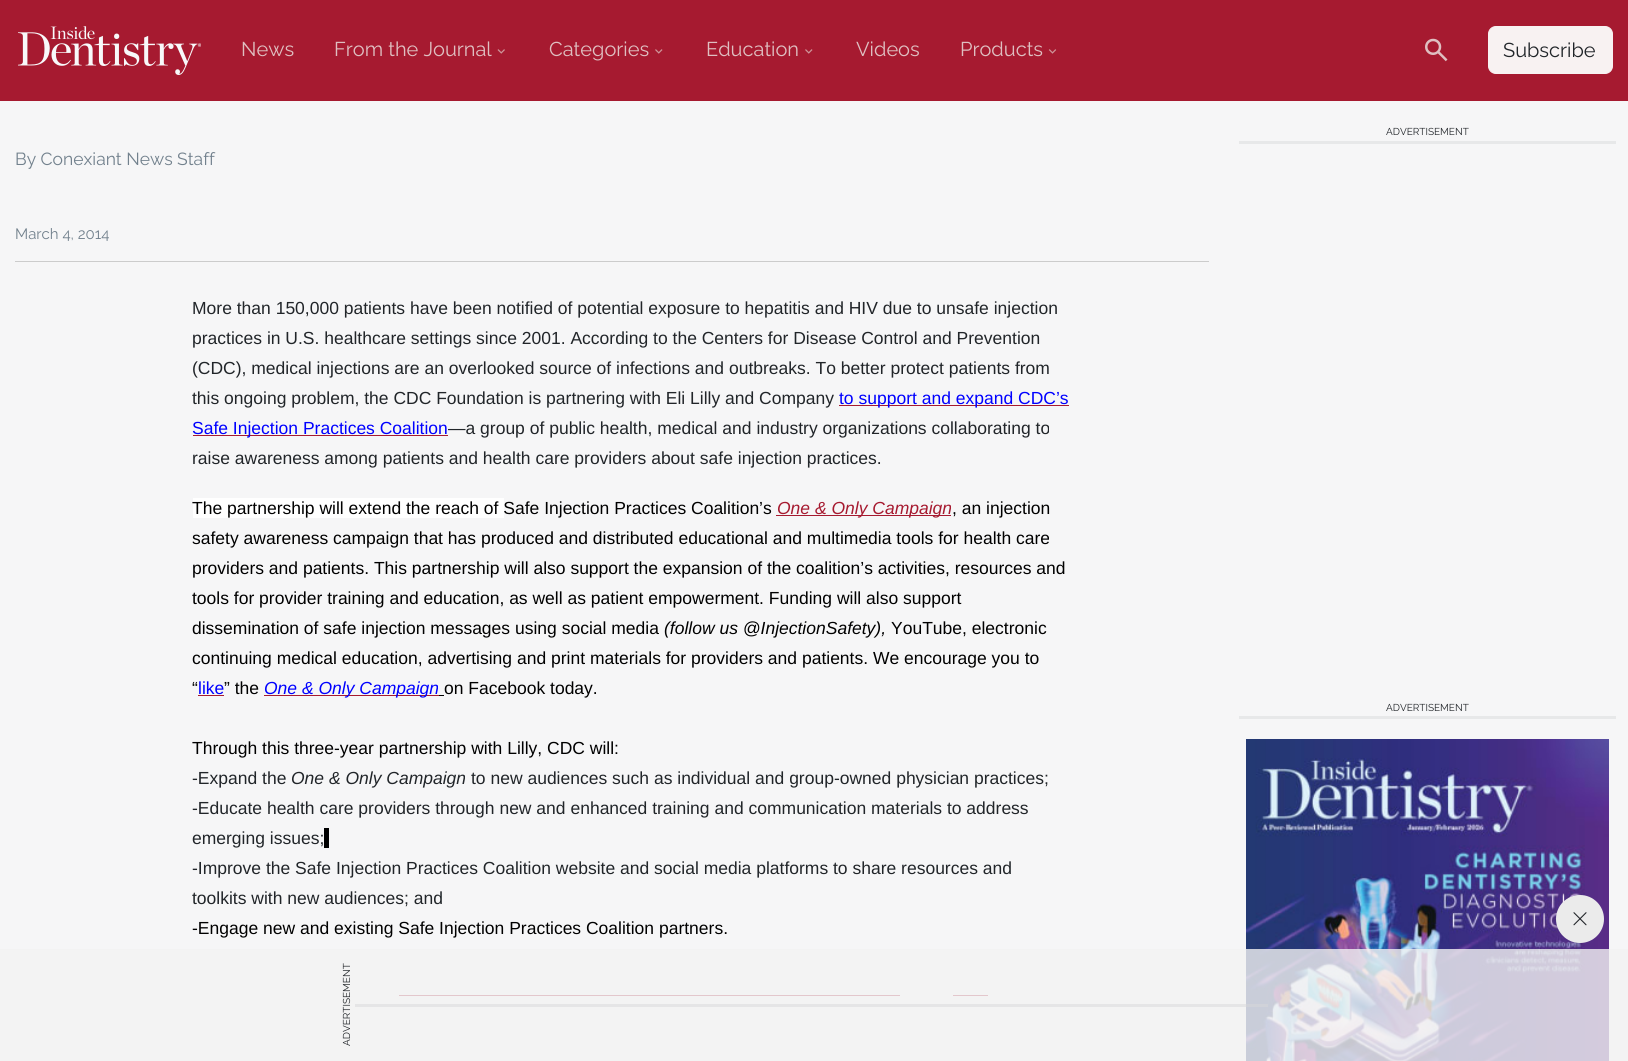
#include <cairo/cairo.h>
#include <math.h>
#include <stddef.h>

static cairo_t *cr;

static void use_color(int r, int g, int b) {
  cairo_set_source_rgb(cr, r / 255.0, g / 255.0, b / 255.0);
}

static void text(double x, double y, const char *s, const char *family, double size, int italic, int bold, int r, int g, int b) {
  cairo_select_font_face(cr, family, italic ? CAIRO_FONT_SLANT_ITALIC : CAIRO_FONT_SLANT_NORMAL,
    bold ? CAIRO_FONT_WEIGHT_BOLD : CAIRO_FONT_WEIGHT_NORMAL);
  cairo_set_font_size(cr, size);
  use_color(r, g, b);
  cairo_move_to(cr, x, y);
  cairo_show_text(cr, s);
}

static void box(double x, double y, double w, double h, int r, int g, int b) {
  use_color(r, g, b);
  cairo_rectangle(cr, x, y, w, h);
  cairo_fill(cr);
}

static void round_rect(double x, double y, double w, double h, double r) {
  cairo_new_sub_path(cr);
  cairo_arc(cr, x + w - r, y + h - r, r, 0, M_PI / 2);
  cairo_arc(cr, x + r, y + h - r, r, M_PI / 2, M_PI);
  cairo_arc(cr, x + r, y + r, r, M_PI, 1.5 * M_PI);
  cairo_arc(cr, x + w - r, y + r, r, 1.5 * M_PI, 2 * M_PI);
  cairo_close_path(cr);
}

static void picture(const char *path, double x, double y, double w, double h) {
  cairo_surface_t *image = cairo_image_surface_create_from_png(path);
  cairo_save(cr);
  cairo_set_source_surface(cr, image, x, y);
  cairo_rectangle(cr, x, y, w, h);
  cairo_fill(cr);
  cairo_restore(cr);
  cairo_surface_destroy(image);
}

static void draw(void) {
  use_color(246, 246, 247);
  cairo_paint(cr);
  box(0, 0, 1628, 101, 166, 26, 48);
  picture("img_01.png", 18, 26, 183, 49);
  picture("img_02.png", 497, 49, 8, 5);
  picture("img_03.png", 655, 49, 8, 5);
  picture("img_03.png", 805, 49, 8, 5);
  picture("img_04.png", 1048, 49, 9, 5);
  picture("img_05.png", 1425, 38, 23, 24);
  use_color(248, 242, 242);
  round_rect(1488.5, 26.5, 124, 47, 7.5);
  cairo_fill_preserve(cr);
  cairo_set_line_width(cr, 1);
  cairo_stroke(cr);
  box(15, 261, 1194, 1, 204, 204, 204);
  box(839, 405, 230, 1, 166, 26, 48);
  box(193, 435, 255, 1, 166, 26, 48);
  box(193, 498, 311, 20, 255, 255, 255);
  box(776, 515, 175, 1, 166, 26, 48);
  box(198, 695, 26, 1, 166, 26, 48);
  box(264, 695, 175, 1, 166, 26, 48);
  box(439, 695, 5, 1, 0, 0, 0);
  box(324, 828, 5, 20, 0, 0, 0);
  box(399, 995, 501, 1, 166, 26, 48);
  box(953, 995, 35, 1, 166, 26, 48);
  box(1239, 141, 377, 3, 231, 232, 233);
  box(1239, 716, 377, 3, 231, 232, 233);
  picture("img_06.png", 1246, 739, 363, 322);
  cairo_set_source_rgba(cr, 0.949, 0.949, 0.949, 0.8);
  cairo_rectangle(cr, 0, 949, 1628, 112);
  cairo_fill(cr);
  use_color(235, 235, 235);
  cairo_arc(cr, 1580, 919, 24, 0, 2 * M_PI);
  cairo_fill(cr);
  picture("img_07.png", 1573, 912, 14, 14);
  cairo_set_source_rgba(cr, 0.847, 0.851, 0.855, 0.5);
  cairo_rectangle(cr, 355, 1004, 913, 3);
  cairo_fill(cr);
  text(241, 56, "News", "Raleway", 20, 0, 0, 223, 191, 193);
  text(334, 56, "From the Journal", "Raleway", 20, 0, 0, 223, 191, 193);
  text(549, 56, "Categories", "Raleway", 20, 0, 0, 223, 191, 193);
  text(706, 56, "Education", "Raleway", 20, 0, 0, 223, 191, 193);
  text(856, 56, "Videos", "Raleway", 20, 0, 0, 223, 191, 193);
  text(960, 56, "Products", "Raleway", 20, 0, 0, 223, 191, 193);
  text(1503, 57, "Subscribe", "Raleway", 20, 0, 0, 33, 37, 41);
  text(15, 165, "By Conexiant News Staff", "Raleway", 17.5, 0, 0, 114, 129, 141);
  text(15, 239, "March 4, 2014", "Raleway", 15, 0, 0, 114, 129, 141);
  text(192, 314, "More than 150,000 patients have been notified of potential exposure to hepatitis and HIV due to unsafe injection", "Liberation Sans", 17.5, 0, 0, 33, 37, 41);
  text(192, 344, "practices in U.S. healthcare settings since 2001. According to the Centers for Disease Control and Prevention", "Liberation Sans", 17.5, 0, 0, 33, 37, 41);
  text(192, 374, "(CDC), medical injections are an overlooked source of infections and outbreaks. To better protect patients from", "Liberation Sans", 17.5, 0, 0, 33, 37, 41);
  text(192, 404, "this ongoing problem, the CDC Foundation is partnering with Eli Lilly and Company", "Liberation Sans", 17.5, 0, 0, 33, 37, 41);
  text(839, 404, "to support and expand CDC’s", "Liberation Sans", 17.5, 0, 0, 0, 0, 255);
  text(192, 434, "Safe Injection Practices Coalition", "Liberation Sans", 17.5, 0, 0, 0, 0, 255);
  text(448, 434, "—a group of public health, medical and industry organizations collaborating to", "Liberation Sans", 17.5, 0, 0, 33, 37, 41);
  text(192, 464, "raise awareness among patients and health care providers about safe injection practices.", "Liberation Sans", 17.5, 0, 0, 33, 37, 41);
  text(192, 514, "The partnership will extend the reach of Safe Injection Practices Coalition’s", "Liberation Sans", 17.5, 0, 0, 0, 0, 0);
  text(777, 514, "One & Only Campaign", "Liberation Sans", 17.5, 1, 0, 166, 26, 48);
  text(952, 514, ", an injection", "Liberation Sans", 17.5, 0, 0, 0, 0, 0);
  text(192, 544, "safety awareness campaign that has produced and distributed educational and multimedia tools for health care", "Liberation Sans", 17.5, 0, 0, 0, 0, 0);
  text(192, 574, "providers and patients. This partnership will also support the expansion of the coalition’s activities, resources and", "Liberation Sans", 17.5, 0, 0, 0, 0, 0);
  text(192, 604, "tools for provider training and education, as well as patient empowerment. Funding will also support", "Liberation Sans", 17.5, 0, 0, 0, 0, 0);
  text(192, 634, "dissemination of safe injection messages using social media", "Liberation Sans", 17.5, 0, 0, 0, 0, 0);
  text(664, 634, "(follow us @InjectionSafety),", "Liberation Sans", 17.5, 1, 0, 0, 0, 0);
  text(891, 634, "YouTube, electronic", "Liberation Sans", 17.5, 0, 0, 0, 0, 0);
  text(192, 664, "continuing medical education, advertising and print materials for providers and patients. We encourage you to", "Liberation Sans", 17.5, 0, 0, 0, 0, 0);
  text(192, 694, "“", "Liberation Sans", 17.5, 0, 0, 0, 0, 0);
  text(198, 694, "like", "Liberation Sans", 17.5, 0, 0, 0, 0, 255);
  text(224, 694, "” the", "Liberation Sans", 17.5, 0, 0, 0, 0, 0);
  text(264, 694, "One & Only Campaign", "Liberation Sans", 17.5, 1, 0, 0, 0, 255);
  text(444, 694, "on Facebook today.", "Liberation Sans", 17.5, 0, 0, 0, 0, 0);
  text(192, 754, "Through this three-year partnership with Lilly, CDC will:", "Liberation Sans", 17.5, 0, 0, 0, 0, 0);
  text(192, 784, "-Expand the", "Liberation Sans", 17.5, 0, 0, 33, 37, 41);
  text(291, 784, "One & Only Campaign", "Liberation Sans", 17.5, 1, 0, 33, 37, 41);
  text(471, 784, "to new audiences such as individual and group-owned physician practices;", "Liberation Sans", 17.5, 0, 0, 33, 37, 41);
  text(192, 814, "-Educate health care providers through new and enhanced training and communication materials to address", "Liberation Sans", 17.5, 0, 0, 33, 37, 41);
  text(192, 844, "emerging issues;", "Liberation Sans", 17.5, 0, 0, 33, 37, 41);
  text(192, 874, "-Improve the Safe Injection Practices Coalition website and social media platforms to share resources and", "Liberation Sans", 17.5, 0, 0, 33, 37, 41);
  text(192, 904, "toolkits with new audiences; and", "Liberation Sans", 17.5, 0, 0, 33, 37, 41);
  text(192, 934, "-Engage new and existing Safe Injection Practices Coalition partners.", "Liberation Sans", 17.5, 0, 0, 0, 0, 0);
  text(1386, 135, "ADVERTISEMENT", "Raleway", 10, 0, 0, 33, 37, 41);
  text(1386, 711, "ADVERTISEMENT", "Raleway", 10, 0, 0, 33, 37, 41);
  cairo_save(cr);
  cairo_translate(cr, 350, 1046);
  cairo_rotate(cr, -90 * M_PI / 180);
  text(0, 0, "ADVERTISEMENT", "Raleway", 10, 0, 0, 33, 37, 41);
  cairo_restore(cr);
}

int main(void) {
  cairo_surface_t *surface = cairo_image_surface_create(CAIRO_FORMAT_RGB24, 1628, 1061);
  cr = cairo_create(surface);
  cairo_font_options_t *options = cairo_font_options_create();
  cairo_font_options_set_hint_metrics(options, CAIRO_HINT_METRICS_OFF);
  cairo_font_options_set_hint_style(options, CAIRO_HINT_STYLE_NONE);
  cairo_set_font_options(cr, options);
  cairo_set_miter_limit(cr, 4);
  draw();
  cairo_surface_write_to_png(surface, "out.png");
  cairo_font_options_destroy(options);
  cairo_destroy(cr);
  cairo_surface_destroy(surface);
  return 0;
}
